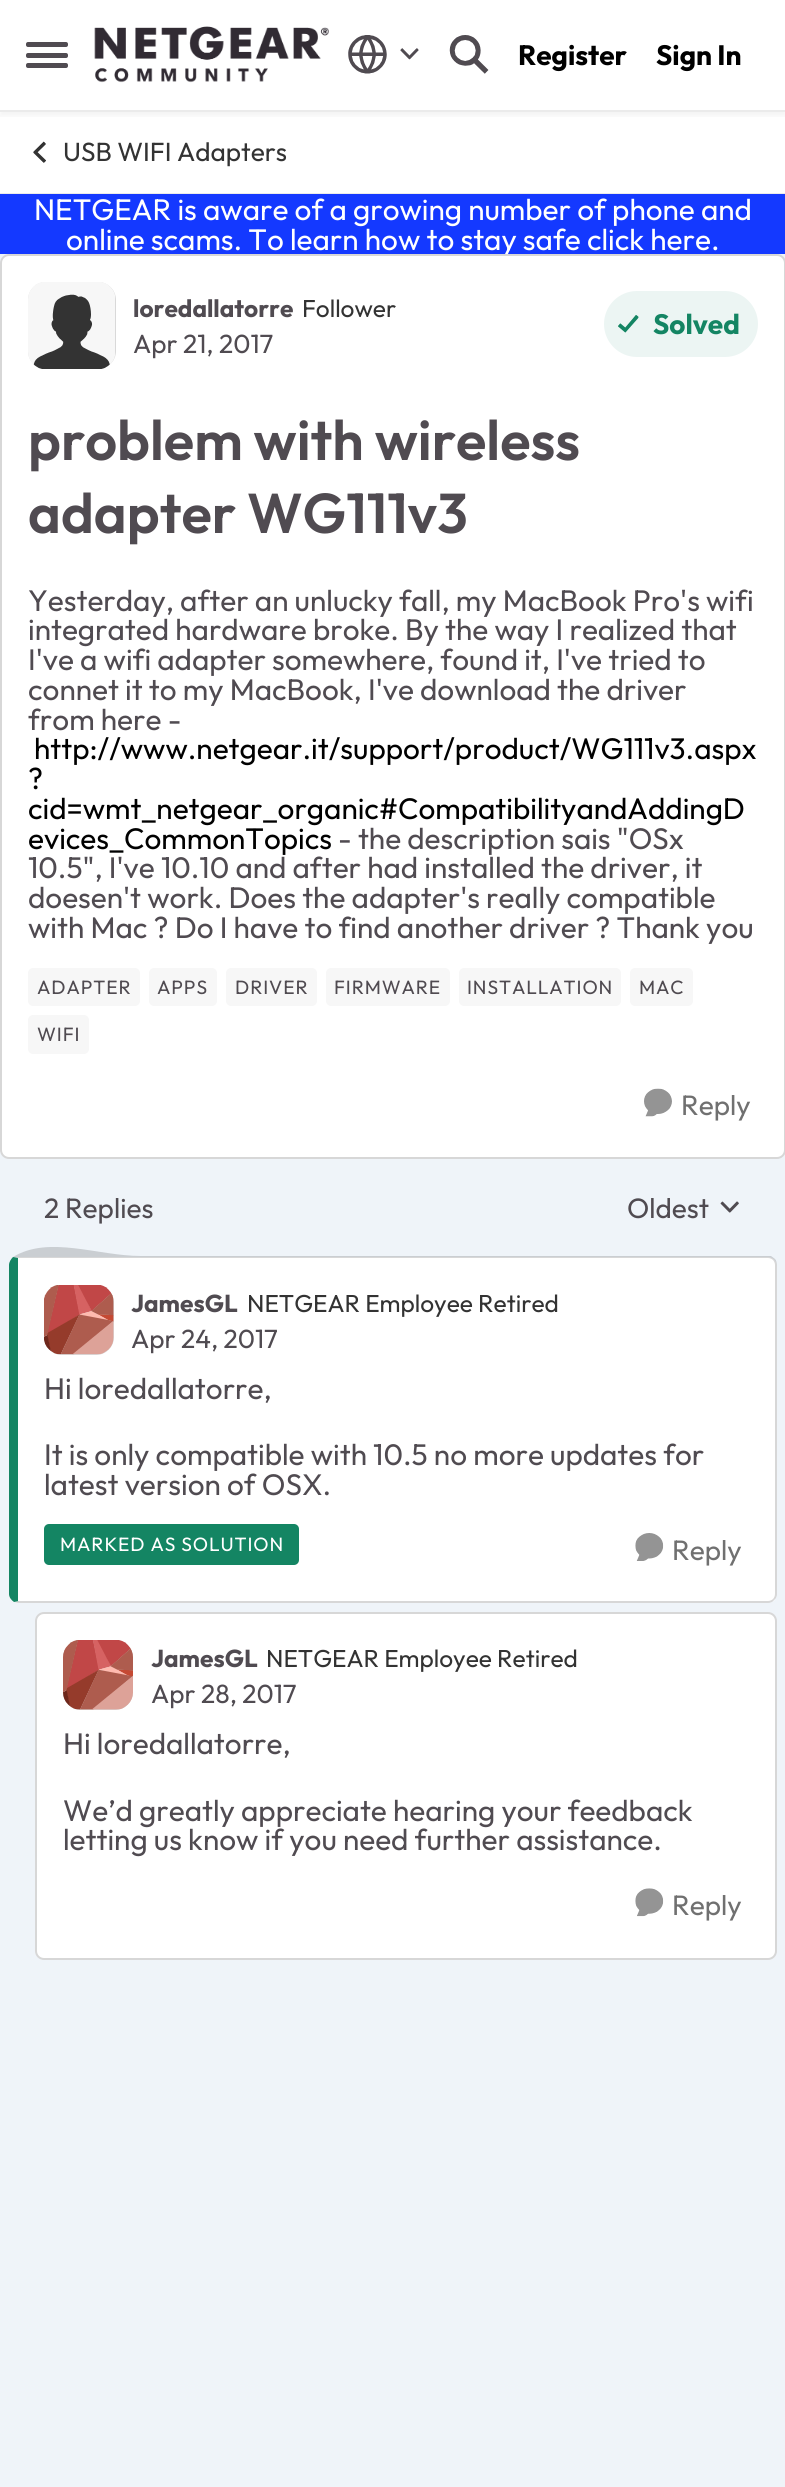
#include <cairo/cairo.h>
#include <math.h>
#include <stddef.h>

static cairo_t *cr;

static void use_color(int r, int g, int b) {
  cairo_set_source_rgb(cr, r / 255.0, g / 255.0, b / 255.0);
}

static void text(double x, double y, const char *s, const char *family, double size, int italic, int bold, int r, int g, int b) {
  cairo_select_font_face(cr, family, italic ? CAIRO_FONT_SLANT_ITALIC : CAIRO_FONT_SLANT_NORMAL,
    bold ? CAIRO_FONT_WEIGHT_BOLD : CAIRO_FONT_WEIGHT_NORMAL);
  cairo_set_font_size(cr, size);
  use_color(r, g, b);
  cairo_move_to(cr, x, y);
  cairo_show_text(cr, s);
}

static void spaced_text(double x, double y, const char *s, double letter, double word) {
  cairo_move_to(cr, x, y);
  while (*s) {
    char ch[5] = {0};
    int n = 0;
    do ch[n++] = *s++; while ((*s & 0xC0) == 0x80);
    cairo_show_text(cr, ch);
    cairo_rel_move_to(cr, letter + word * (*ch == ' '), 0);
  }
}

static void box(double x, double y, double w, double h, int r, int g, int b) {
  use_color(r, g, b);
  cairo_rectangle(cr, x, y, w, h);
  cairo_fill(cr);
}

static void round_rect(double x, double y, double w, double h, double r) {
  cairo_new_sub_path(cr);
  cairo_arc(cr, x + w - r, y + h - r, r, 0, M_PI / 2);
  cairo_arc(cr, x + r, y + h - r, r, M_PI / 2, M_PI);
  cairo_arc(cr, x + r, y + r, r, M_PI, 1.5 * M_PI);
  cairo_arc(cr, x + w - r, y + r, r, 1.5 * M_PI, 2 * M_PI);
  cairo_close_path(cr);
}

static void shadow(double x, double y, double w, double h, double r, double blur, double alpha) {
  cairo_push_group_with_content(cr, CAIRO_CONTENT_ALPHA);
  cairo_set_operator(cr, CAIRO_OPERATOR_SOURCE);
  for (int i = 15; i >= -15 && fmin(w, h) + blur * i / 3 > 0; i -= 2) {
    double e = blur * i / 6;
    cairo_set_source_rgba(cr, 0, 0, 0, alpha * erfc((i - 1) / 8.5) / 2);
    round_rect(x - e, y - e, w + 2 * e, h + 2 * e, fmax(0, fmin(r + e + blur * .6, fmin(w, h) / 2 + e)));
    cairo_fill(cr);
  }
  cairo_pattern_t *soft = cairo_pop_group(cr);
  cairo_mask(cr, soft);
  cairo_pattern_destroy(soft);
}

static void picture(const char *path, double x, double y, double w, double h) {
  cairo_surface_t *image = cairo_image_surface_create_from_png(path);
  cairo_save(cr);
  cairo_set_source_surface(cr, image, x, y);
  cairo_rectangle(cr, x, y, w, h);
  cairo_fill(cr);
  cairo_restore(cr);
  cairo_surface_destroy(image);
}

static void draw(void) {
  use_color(239, 244, 249);
  cairo_paint(cr);
  box(0, 0, 785, 193, 255, 255, 255);
  cairo_save(cr);
  cairo_rectangle(cr, 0, 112, 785, 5);
  cairo_clip(cr);
  use_color(51, 51, 51);
  shadow(0, 4, 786, 112, 0, 3.5, 0.06);
  cairo_restore(cr);
  box(0, 110, 785, 2, 235, 235, 235);
  use_color(80, 75, 81);
  round_rect(26, 42, 42, 5, 2);
  cairo_fill(cr);
  round_rect(26, 53, 42, 5, 2);
  cairo_fill(cr);
  round_rect(26, 63, 42, 5, 2);
  cairo_fill(cr);
  picture("img_01.png", 94, 26, 235, 57);
  picture("img_02.png", 348, 35, 39, 39);
  picture("img_03.png", 400, 48, 19, 12);
  picture("img_04.png", 449, 35, 40, 39);
  box(0, 193, 785, 1, 235, 235, 235);
  picture("img_05.png", 33, 141, 13, 22);
  box(0, 194, 785, 60, 20, 57, 255);
  use_color(255, 255, 255);
  round_rect(0, 254, 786, 905, 9);
  cairo_fill(cr);
  picture("img_09.png", 720, 1201, 19, 12);
  round_rect(9, 1257, 768, 346, 9);
  cairo_fill(cr);
  cairo_set_source_rgba(cr, 0, 0, 0, 0.16);
  cairo_new_path(cr);
  cairo_move_to(cr, 18, 1258);
  cairo_line_to(cr, 13, 1257);
  cairo_curve_to(cr, 49, 1235, 98, 1256, 141, 1256);
  cairo_line_to(cr, 771, 1256);
  cairo_line_to(cr, 775, 1259);
  cairo_line_to(cr, 773, 1260);
  cairo_curve_to(cr, 772, 1259, 770, 1258, 768, 1258);
  cairo_close_path(cr);
  cairo_fill(cr);
  cairo_new_path(cr);
  cairo_move_to(cr, 777, 1594);
  cairo_line_to(cr, 777, 1265);
  cairo_curve_to(cr, 777, 1263, 776, 1260, 775, 1259);
  cairo_line_to(cr, 773, 1260);
  cairo_curve_to(cr, 774, 1261, 775, 1263, 775, 1265);
  cairo_line_to(cr, 775, 1594);
  cairo_curve_to(cr, 775, 1596, 774, 1598, 773, 1599);
  cairo_line_to(cr, 774, 1600);
  cairo_curve_to(cr, 776, 1599, 777, 1596, 777, 1594);
  cairo_close_path(cr);
  cairo_fill(cr);
  cairo_new_path(cr);
  cairo_move_to(cr, 18, 1603);
  cairo_line_to(cr, 768, 1603);
  cairo_curve_to(cr, 770, 1603, 773, 1602, 774, 1600);
  cairo_line_to(cr, 773, 1599);
  cairo_curve_to(cr, 772, 1600, 770, 1601, 768, 1601);
  cairo_line_to(cr, 19, 1601);
  cairo_line_to(cr, 14, 1602);
  cairo_close_path(cr);
  cairo_fill(cr);
  use_color(20, 133, 99);
  cairo_new_path(cr);
  cairo_move_to(cr, 14, 1602);
  cairo_curve_to(cr, 11, 1600, 9, 1597, 9, 1594);
  cairo_line_to(cr, 9, 1265);
  cairo_curve_to(cr, 9, 1262, 11, 1259, 13, 1257);
  cairo_line_to(cr, 18, 1258);
  cairo_line_to(cr, 18, 1601);
  cairo_line_to(cr, 19, 1601);
  cairo_close_path(cr);
  cairo_fill(cr);
  use_color(217, 217, 217);
  round_rect(44, 1285, 70, 70, 18);
  cairo_fill(cr);
  picture("img_10.png", 44, 1285, 70, 70);
  use_color(20, 133, 99);
  round_rect(44, 1524, 255, 41, 5);
  cairo_fill(cr);
  picture("img_11.png", 635, 1533, 29, 28);
  use_color(255, 255, 255);
  round_rect(35, 1612, 742, 348, 9);
  cairo_fill(cr);
  round_rect(36, 1613, 740, 346, 8);
  cairo_set_source_rgba(cr, 0, 0, 0, 0.16);
  cairo_stroke(cr);
  use_color(217, 217, 217);
  round_rect(63, 1640, 70, 70, 18);
  cairo_fill(cr);
  picture("img_12.png", 63, 1640, 70, 70);
  picture("img_13.png", 635, 1888, 29, 29);
  text(518, 65, "Register", "Outfit", 28, 0, 1, 0, 0, 0);
  text(656, 65, "Sign In", "Outfit", 28, 0, 1, 0, 0, 0);
  text(63, 161, "USB WIFI Adapters", "Outfit", 26.25, 0, 0, 51, 51, 51);
  text(34, 220, "NETGEAR is aware of a growing number of phone and", "Outfit", 29.75, 0, 0, 255, 255, 255);
  text(66, 250, "online scams. To learn how to stay safe click here.", "Outfit", 29.75, 0, 0, 255, 255, 255);
  round_rect(1, 255, 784, 903, 8);
  cairo_set_source_rgba(cr, 0, 0, 0, 0.16);
  cairo_stroke(cr);
  use_color(217, 217, 217);
  round_rect(28, 282, 88, 87, 18);
  cairo_fill(cr);
  picture("img_06.png", 28, 282, 87, 87);
  text(133, 317, "loredallatorre", "Outfit", 24.5, 0, 1, 80, 75, 81);
  text(302, 317, "Follower", "Outfit", 24.5, 0, 0, 51, 51, 51);
  text(133, 353, "Apr 21, 2017", "Outfit", 26.25, 0, 0, 80, 75, 81);
  use_color(236, 245, 243);
  round_rect(604, 291, 154, 66, 33);
  cairo_fill(cr);
  picture("img_07.png", 618, 315, 21, 18);
  text(653, 334, "Solved", "Outfit", 28, 0, 1, 20, 133, 99);
  text(28, 460, "problem with wireless", "Outfit SemiBold", 56, 0, 0, 80, 75, 81);
  text(28, 533, "adapter WG111v3", "Outfit SemiBold", 56, 0, 0, 80, 75, 81);
  text(28, 611, "Yesterday, after an unlucky fall, my MacBook Pro's wifi", "Outfit", 29.75, 0, 0, 80, 75, 81);
  text(28, 640, "integrated hardware broke. By the way I realized that", "Outfit", 29.75, 0, 0, 80, 75, 81);
  text(28, 670, "I've a wifi adapter somewhere, found it, I've tried to", "Outfit", 29.75, 0, 0, 80, 75, 81);
  text(28, 700, "connet it to my MacBook, I've download the driver", "Outfit", 29.75, 0, 0, 80, 75, 81);
  text(28, 730, "from here -", "Outfit", 29.75, 0, 0, 80, 75, 81);
  text(34, 759, "http://www.netgear.it/support/product/WG111v3.aspx", "Outfit", 29.75, 0, 0, 0, 0, 0);
  text(28, 789, "?", "Outfit", 29.75, 0, 0, 0, 0, 0);
  text(28, 819, "cid=wmt_netgear_organic#CompatibilityandAddingD", "Outfit", 29.75, 0, 0, 0, 0, 0);
  text(28, 849, "evices_CommonTopics", "Outfit", 29.75, 0, 0, 0, 0, 0);
  text(338, 849, "- the description sais \"OSx", "Outfit", 29.75, 0, 0, 80, 75, 81);
  text(28, 878, "10.5\", I've 10.10 and after had installed the driver, it", "Outfit", 29.75, 0, 0, 80, 75, 81);
  text(28, 908, "doesen't work. Does the adapter's really compatible", "Outfit", 29.75, 0, 0, 80, 75, 81);
  text(28, 938, "with Mac ? Do I have to find another driver ? Thank you", "Outfit", 29.75, 0, 0, 80, 75, 81);
  use_color(247, 247, 247);
  round_rect(28, 968, 112, 38, 5);
  cairo_fill(cr);
  cairo_set_font_size(cr, 19.25);
  use_color(80, 75, 81);
  spaced_text(37, 994, "ADAPTER", 0.9, 0);
  use_color(247, 247, 247);
  round_rect(149, 968, 68, 38, 5);
  cairo_fill(cr);
  use_color(80, 75, 81);
  spaced_text(157, 994, "APPS", 0.9, 0);
  use_color(247, 247, 247);
  round_rect(226, 968, 91, 38, 5);
  cairo_fill(cr);
  use_color(80, 75, 81);
  spaced_text(235, 994, "DRIVER", 0.9, 0);
  use_color(247, 247, 247);
  round_rect(326, 968, 124, 38, 5);
  cairo_fill(cr);
  use_color(80, 75, 81);
  spaced_text(334, 994, "FIRMWARE", 0.9, 0);
  use_color(247, 247, 247);
  round_rect(459, 968, 162, 38, 5);
  cairo_fill(cr);
  use_color(80, 75, 81);
  spaced_text(467, 994, "INSTALLATION", 0.9, 0);
  use_color(247, 247, 247);
  round_rect(630, 968, 63, 38, 5);
  cairo_fill(cr);
  use_color(80, 75, 81);
  spaced_text(639, 994, "MAC", 0.9, 0);
  use_color(247, 247, 247);
  round_rect(28, 1015, 61, 39, 5);
  cairo_fill(cr);
  use_color(80, 75, 81);
  spaced_text(37, 1041, "WIFI", 0.9, 0);
  picture("img_08.png", 644, 1088, 28, 29);
  text(681, 1115, "Reply", "Outfit", 28, 0, 0, 112, 112, 112);
  text(44, 1218, "2 Replies", "Outfit", 28, 0, 0, 80, 75, 81);
  text(627, 1218, "Oldest", "Outfit", 28, 0, 0, 80, 75, 81);
  text(131, 1312, "JamesGL", "Outfit", 24.5, 0, 1, 80, 75, 81);
  text(247, 1312, "NETGEAR Employee Retired", "Outfit", 24.5, 0, 0, 51, 51, 51);
  text(131, 1348, "Apr 24, 2017", "Outfit", 26.25, 0, 0, 80, 75, 81);
  text(44, 1399, "Hi loredallatorre,", "Outfit", 29.75, 0, 0, 80, 75, 81);
  text(44, 1465, "It is only compatible with 10.5 no more updates for", "Outfit", 29.75, 0, 0, 80, 75, 81);
  text(44, 1495, "latest version of OSX.", "Outfit", 29.75, 0, 0, 80, 75, 81);
  cairo_set_font_size(cr, 19.25);
  use_color(255, 255, 255);
  spaced_text(60, 1551, "MARKED AS SOLUTION", 0.9, 0);
  text(672, 1560, "Reply", "Outfit", 28, 0, 0, 112, 112, 112);
  text(151, 1667, "JamesGL", "Outfit", 24.5, 0, 1, 80, 75, 81);
  text(266, 1667, "NETGEAR Employee Retired", "Outfit", 24.5, 0, 0, 51, 51, 51);
  text(151, 1703, "Apr 28, 2017", "Outfit", 26.25, 0, 0, 80, 75, 81);
  text(63, 1754, "Hi loredallatorre,", "Outfit", 29.75, 0, 0, 80, 75, 81);
  text(63, 1821, "We’d greatly appreciate hearing your feedback", "Outfit", 29.75, 0, 0, 80, 75, 81);
  text(63, 1850, "letting us know if you need further assistance.", "Outfit", 29.75, 0, 0, 80, 75, 81);
  text(672, 1915, "Reply", "Outfit", 28, 0, 0, 112, 112, 112);
}

int main(void) {
  cairo_surface_t *surface = cairo_image_surface_create(CAIRO_FORMAT_RGB24, 785, 2487);
  cr = cairo_create(surface);
  cairo_font_options_t *options = cairo_font_options_create();
  cairo_font_options_set_hint_metrics(options, CAIRO_HINT_METRICS_OFF);
  cairo_font_options_set_hint_style(options, CAIRO_HINT_STYLE_NONE);
  cairo_set_font_options(cr, options);
  cairo_set_miter_limit(cr, 4);
  draw();
  cairo_surface_write_to_png(surface, "out.png");
  cairo_font_options_destroy(options);
  cairo_destroy(cr);
  cairo_surface_destroy(surface);
  return 0;
}
